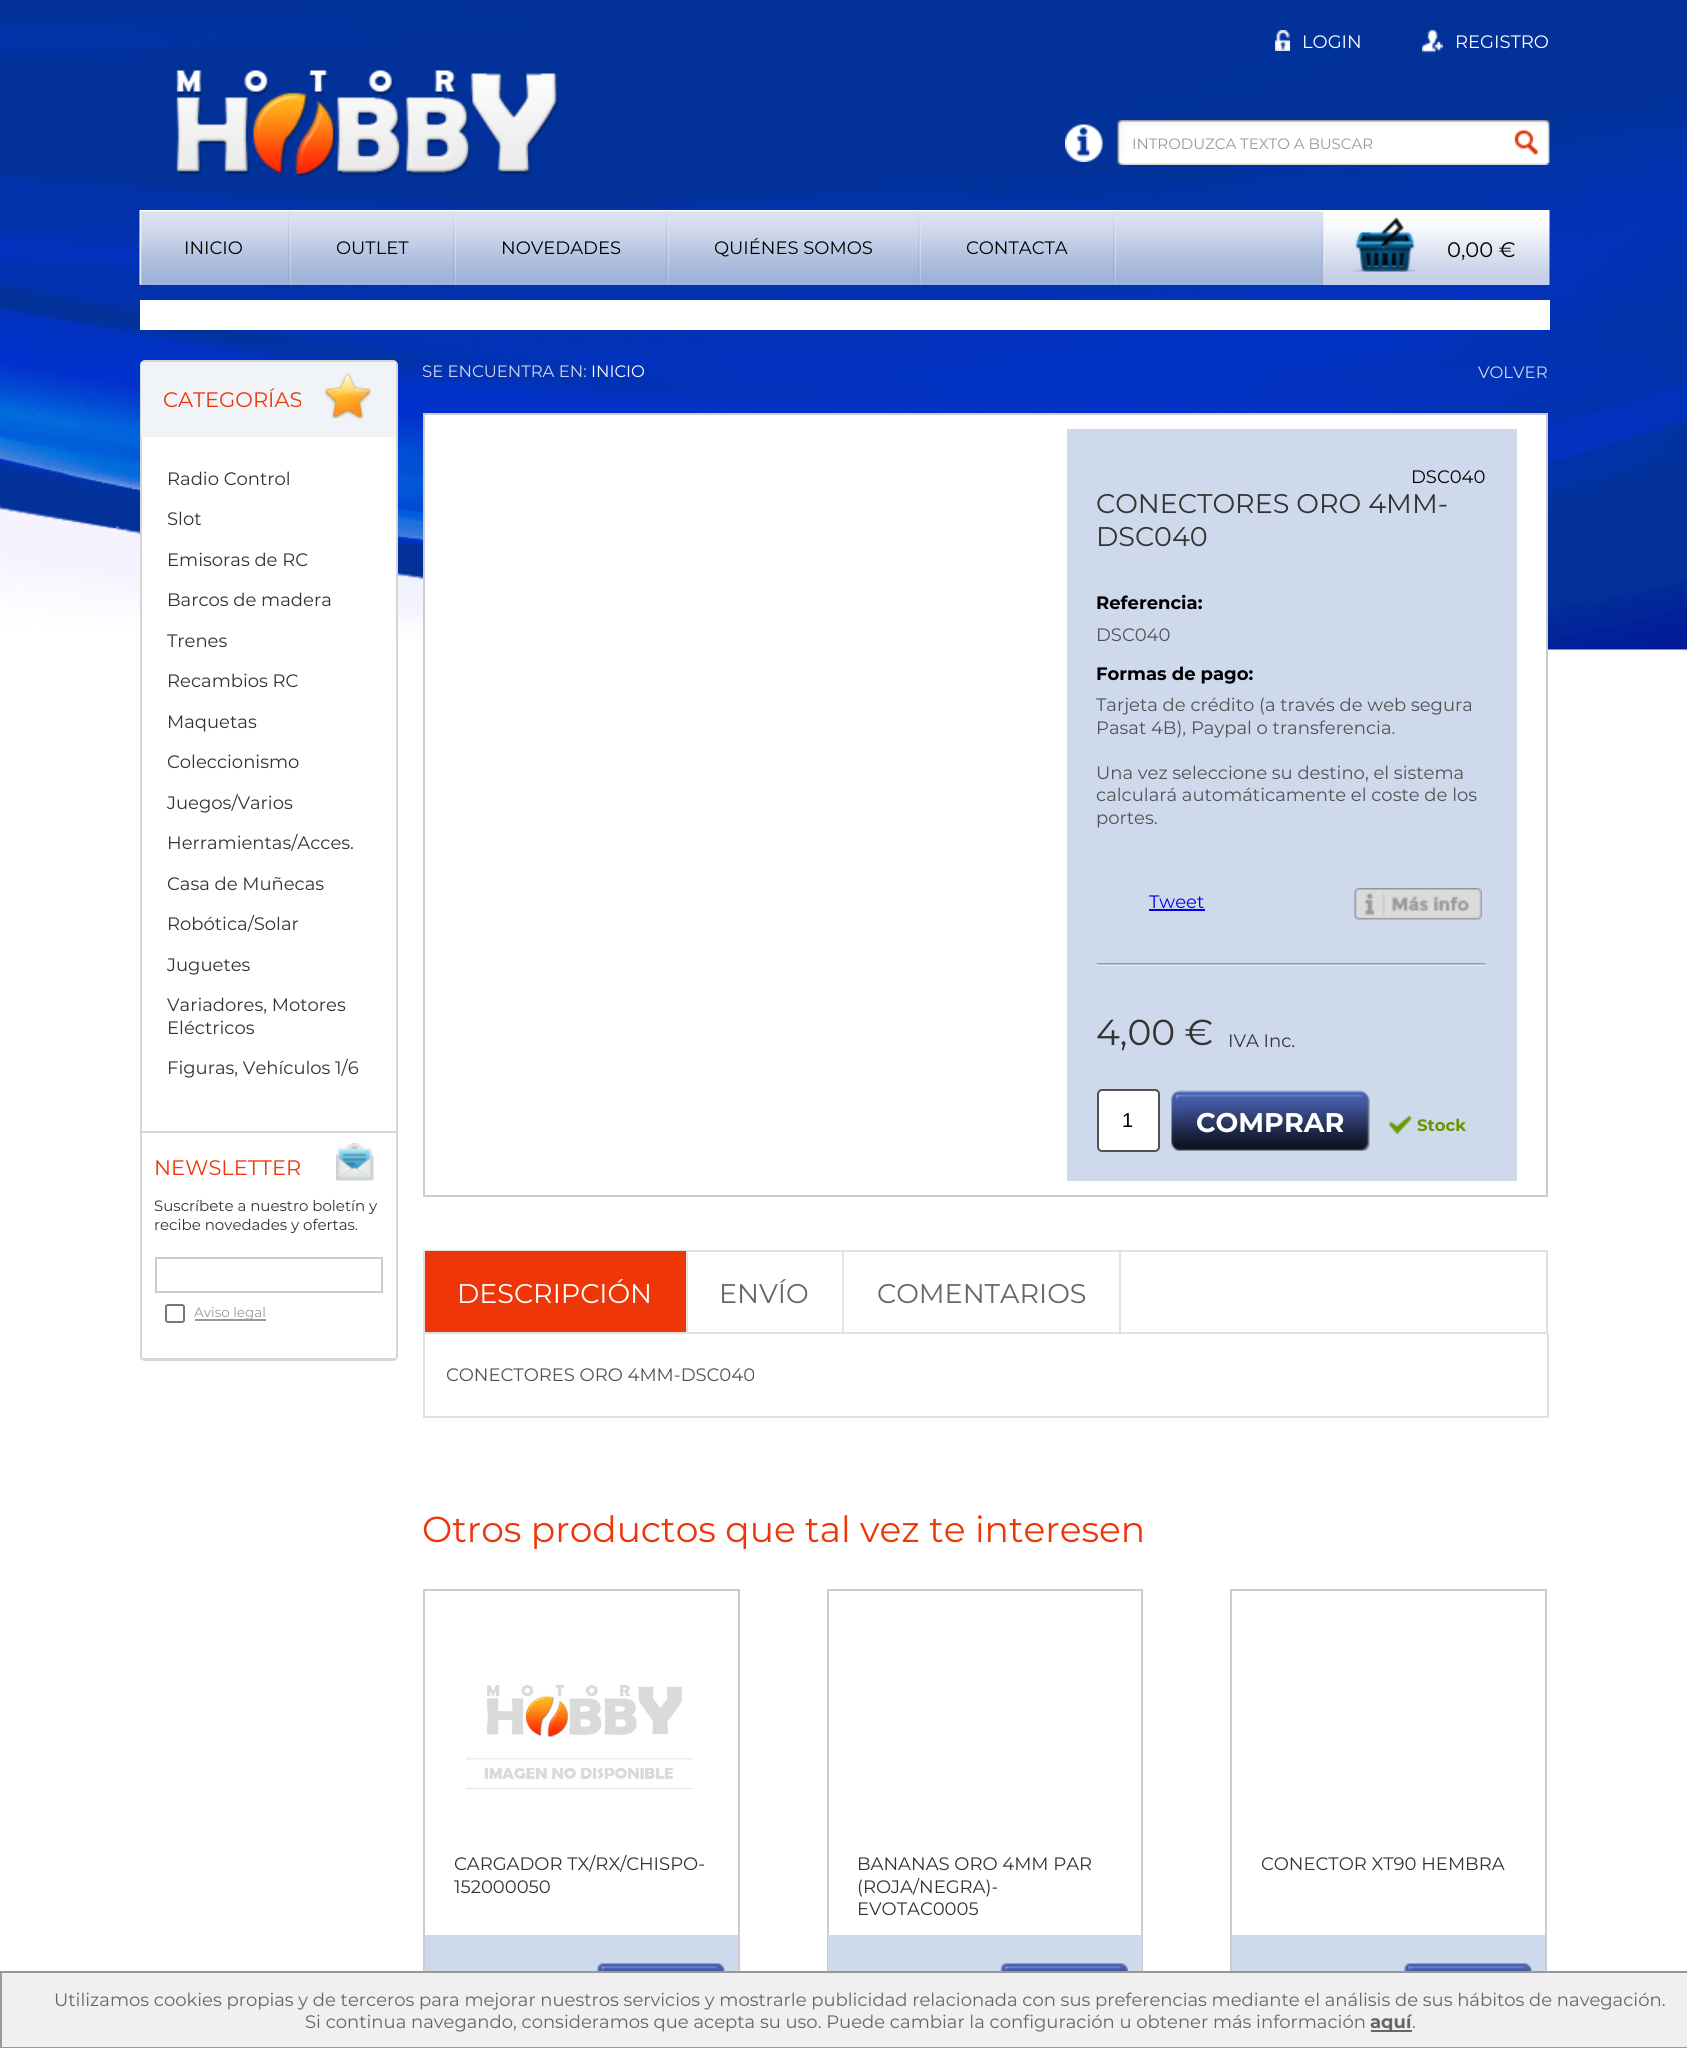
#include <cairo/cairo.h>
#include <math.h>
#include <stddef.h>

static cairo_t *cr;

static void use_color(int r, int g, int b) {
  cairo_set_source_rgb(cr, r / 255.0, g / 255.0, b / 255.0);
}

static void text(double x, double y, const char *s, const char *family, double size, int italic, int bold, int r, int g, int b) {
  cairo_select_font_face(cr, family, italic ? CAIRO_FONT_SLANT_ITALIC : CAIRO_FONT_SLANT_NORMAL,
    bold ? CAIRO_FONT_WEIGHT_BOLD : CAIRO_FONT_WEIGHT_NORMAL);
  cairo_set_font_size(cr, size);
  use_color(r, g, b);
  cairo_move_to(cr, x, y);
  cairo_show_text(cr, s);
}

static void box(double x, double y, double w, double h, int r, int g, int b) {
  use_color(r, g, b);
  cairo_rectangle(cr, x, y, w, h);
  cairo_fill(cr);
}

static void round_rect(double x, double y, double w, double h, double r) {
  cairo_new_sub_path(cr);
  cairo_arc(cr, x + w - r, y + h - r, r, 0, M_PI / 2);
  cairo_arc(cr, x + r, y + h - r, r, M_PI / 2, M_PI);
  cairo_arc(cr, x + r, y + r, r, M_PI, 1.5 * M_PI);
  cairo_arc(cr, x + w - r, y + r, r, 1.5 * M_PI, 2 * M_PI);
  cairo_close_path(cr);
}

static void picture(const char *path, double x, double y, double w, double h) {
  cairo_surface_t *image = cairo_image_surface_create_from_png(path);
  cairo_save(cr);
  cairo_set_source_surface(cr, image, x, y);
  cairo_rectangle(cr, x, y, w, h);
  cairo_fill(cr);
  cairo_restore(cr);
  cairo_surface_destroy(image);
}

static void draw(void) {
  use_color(255, 255, 255);
  cairo_paint(cr);
  picture("img_01.png", 0, 0, 1687, 650);
  picture("img_02.png", 176, 70, 382, 106);
  picture("img_03.png", 1275, 30, 15, 21);
  picture("img_04.png", 1422, 30, 21, 23);
  picture("img_05.png", 1065, 124, 38, 38);
  picture("img_06.png", 1117, 120, 433, 45);
  picture("img_07.png", 139, 210, 1411, 75);
  picture("img_08.png", 288, 211, 3, 74);
  picture("img_08.png", 453, 211, 3, 74);
  picture("img_09.png", 666, 211, 3, 74);
  picture("img_09.png", 918, 211, 3, 74);
  picture("img_08.png", 1113, 211, 3, 74);
  box(140, 300, 1410, 30, 255, 255, 255);
  round_rect(141, 361, 256, 999, 4);
  cairo_fill_preserve(cr);
  use_color(213, 213, 213);
  cairo_stroke(cr);
  box(141, 1131, 255, 2, 214, 214, 214);
  box(141, 362, 255, 75, 240, 243, 248);
  picture("img_10.png", 325, 373, 46, 46);
  picture("img_11.png", 336, 1143, 38, 38);
  box(141, 1358, 255, 2, 214, 214, 214);
  cairo_rectangle(cr, 156, 1258, 226, 34);
  use_color(204, 204, 204);
  cairo_stroke(cr);
  round_rect(166, 1305, 18, 17, 2);
  use_color(118, 118, 118);
  cairo_stroke(cr);
  box(195, 1319, 71, 2, 153, 153, 153);
  box(425, 415, 1121, 235, 255, 255, 255);
  cairo_rectangle(cr, 424, 414, 1123, 782);
  use_color(204, 204, 204);
  cairo_stroke(cr);
  box(1067, 429, 450, 752, 207, 217, 236);
  box(1149, 909, 56, 2, 0, 0, 238);
  picture("img_12.png", 1354, 888, 128, 32);
  picture("img_13.png", 1096, 963, 391, 3);
  use_color(255, 255, 255);
  round_rect(1098, 1090, 61, 61, 4);
  cairo_fill_preserve(cr);
  use_color(82, 82, 83);
  cairo_stroke(cr);
  picture("img_14.png", 1171, 1090, 199, 61);
  picture("img_15.png", 1389, 1116, 23, 18);
  cairo_rectangle(cr, 424, 1251, 1123, 82);
  use_color(224, 224, 224);
  cairo_stroke(cr);
  box(425, 1251, 261, 81, 239, 54, 8);
  box(686, 1251, 2, 81, 226, 226, 226);
  box(842, 1251, 2, 81, 226, 226, 226);
  box(1119, 1251, 2, 81, 226, 226, 226);
  box(1547, 1334, 2, 84, 224, 224, 224);
  box(423, 1416, 1125, 2, 224, 224, 224);
  box(423, 1334, 2, 84, 224, 224, 224);
  cairo_rectangle(cr, 424, 1590, 315, 433);
  use_color(204, 204, 204);
  cairo_stroke(cr);
  picture("img_16.png", 466, 1685, 227, 104);
  box(425, 1935, 313, 36, 207, 217, 236);
  picture("img_17.png", 597, 1963, 128, 8);
  cairo_rectangle(cr, 828, 1590, 314, 433);
  use_color(204, 204, 204);
  cairo_stroke(cr);
  box(828, 1935, 314, 36, 207, 217, 236);
  picture("img_18.png", 1000, 1963, 128, 8);
  cairo_rectangle(cr, 1231, 1590, 315, 433);
  use_color(204, 204, 204);
  cairo_stroke(cr);
  box(1232, 1935, 313, 36, 207, 217, 236);
  picture("img_19.png", 1404, 1963, 128, 8);
  use_color(240, 240, 240);
  cairo_rectangle(cr, 1, 1972, 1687, 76);
  cairo_fill_preserve(cr);
  use_color(153, 153, 153);
  cairo_stroke(cr);
  box(1371, 2030, 41, 2, 102, 102, 102);
  text(1302, 48, "LOGIN", "Montserrat", 18, 0, 0, 255, 255, 255);
  text(1455, 48, "REGISTRO", "Montserrat", 18, 0, 0, 255, 255, 255);
  text(1132, 149, "INTRODUZCA TEXTO A BUSCAR", "Montserrat", 15, 0, 0, 153, 153, 153);
  text(184, 254, "INICIO", "Montserrat", 18, 0, 0, 0, 0, 0);
  text(336, 254, "OUTLET", "Montserrat", 18, 0, 0, 0, 0, 0);
  text(501, 254, "NOVEDADES", "Montserrat", 18, 0, 0, 0, 0, 0);
  text(714, 254, "QUIÉNES SOMOS", "Montserrat", 18, 0, 0, 0, 0, 0);
  text(966, 254, "CONTACTA", "Montserrat", 18, 0, 0, 0, 0, 0);
  text(1447, 257, "0,00 €", "Montserrat", 21, 0, 0, 0, 0, 0);
  text(422, 377, "SE ENCUENTRA EN:", "Montserrat", 16.5, 0, 0, 207, 217, 236);
  text(591, 377, "INICIO", "Montserrat", 16.5, 0, 0, 255, 255, 255);
  text(1478, 378, "VOLVER", "Montserrat", 16.5, 0, 0, 207, 217, 236);
  text(163, 407, "CATEGORÍAS", "Montserrat", 21, 0, 0, 239, 54, 8);
  text(167, 485, "Radio Control", "Montserrat", 18, 0, 0, 51, 51, 51);
  text(167, 525, "Slot", "Montserrat", 18, 0, 0, 51, 51, 51);
  text(167, 566, "Emisoras de RC", "Montserrat", 18, 0, 0, 51, 51, 51);
  text(167, 606, "Barcos de madera", "Montserrat", 18, 0, 0, 51, 51, 51);
  text(167, 647, "Trenes", "Montserrat", 18, 0, 0, 51, 51, 51);
  text(167, 687, "Recambios RC", "Montserrat", 18, 0, 0, 51, 51, 51);
  text(167, 728, "Maquetas", "Montserrat", 18, 0, 0, 51, 51, 51);
  text(167, 768, "Coleccionismo", "Montserrat", 18, 0, 0, 51, 51, 51);
  text(167, 809, "Juegos/Varios", "Montserrat", 18, 0, 0, 51, 51, 51);
  text(167, 849, "Herramientas/Acces.", "Montserrat", 18, 0, 0, 51, 51, 51);
  text(167, 890, "Casa de Muñecas", "Montserrat", 18, 0, 0, 51, 51, 51);
  text(167, 930, "Robótica/Solar", "Montserrat", 18, 0, 0, 51, 51, 51);
  text(167, 971, "Juguetes", "Montserrat", 18, 0, 0, 51, 51, 51);
  text(167, 1011, "Variadores, Motores", "Montserrat", 18, 0, 0, 51, 51, 51);
  text(167, 1034, "Eléctricos", "Montserrat", 18, 0, 0, 51, 51, 51);
  text(167, 1074, "Figuras, Vehículos 1/6", "Montserrat", 18, 0, 0, 51, 51, 51);
  text(154, 1175, "NEWSLETTER", "Montserrat", 21, 0, 0, 239, 54, 8);
  text(154, 1211, "Suscríbete a nuestro boletín y", "Montserrat", 15, 0, 0, 51, 51, 51);
  text(154, 1230, "recibe novedades y ofertas.", "Montserrat", 15, 0, 0, 51, 51, 51);
  text(194, 1317, "Aviso legal", "Montserrat", 13.5, 0, 0, 153, 153, 153);
  text(1411, 483, "DSC040", "Montserrat", 18, 0, 0, 0, 0, 0);
  text(1096, 513, "CONECTORES ORO 4MM-", "Montserrat", 27, 0, 0, 51, 51, 51);
  text(1096, 546, "DSC040", "Montserrat", 27, 0, 0, 51, 51, 51);
  text(1096, 609, "Referencia:", "Montserrat", 18, 0, 1, 0, 0, 0);
  text(1096, 641, "DSC040", "Montserrat", 18, 0, 0, 82, 82, 82);
  text(1096, 680, "Formas de pago:", "Montserrat", 18, 0, 1, 0, 0, 0);
  text(1096, 711, "Tarjeta de crédito (a través de web segura", "Montserrat", 18, 0, 0, 82, 82, 82);
  text(1096, 734, "Pasat 4B), Paypal o transferencia.", "Montserrat", 18, 0, 0, 82, 82, 82);
  text(1096, 779, "Una vez seleccione su destino, el sistema", "Montserrat", 18, 0, 0, 82, 82, 82);
  text(1096, 801, "calculará automáticamente el coste de los", "Montserrat", 18, 0, 0, 82, 82, 82);
  text(1096, 824, "portes.", "Montserrat", 18, 0, 0, 82, 82, 82);
  text(1149, 908, "Tweet", "Montserrat", 18, 0, 0, 0, 0, 238);
  text(1096, 1045, "4,00 €", "Montserrat", 36, 0, 0, 51, 51, 51);
  text(1228, 1047, "IVA Inc.", "Montserrat", 18, 0, 0, 51, 51, 51);
  text(1122, 1127, "1", "Liberation Sans", 20, 0, 0, 0, 0, 0);
  text(1196, 1132, "COMPRAR", "Montserrat", 27, 0, 1, 255, 255, 255);
  text(1417, 1131, "Stock", "Montserrat", 16.5, 0, 1, 102, 153, 0);
  text(457, 1303, "DESCRIPCIÓN", "Montserrat", 27, 0, 0, 255, 255, 255);
  text(719, 1303, "ENVÍO", "Montserrat", 27, 0, 0, 102, 102, 102);
  text(877, 1303, "COMENTARIOS", "Montserrat", 27, 0, 0, 102, 102, 102);
  text(446, 1381, "CONECTORES ORO 4MM-DSC040", "Montserrat", 18, 0, 0, 82, 82, 82);
  text(422, 1542, "Otros productos que tal vez te interesen", "Montserrat", 36, 0, 0, 239, 54, 8);
  text(454, 1870, "CARGADOR TX/RX/CHISPO-", "Montserrat", 18, 0, 0, 51, 51, 51);
  text(454, 1893, "152000050", "Montserrat", 18, 0, 0, 51, 51, 51);
  text(857, 1870, "BANANAS ORO 4MM PAR", "Montserrat", 18, 0, 0, 51, 51, 51);
  text(857, 1893, "(ROJA/NEGRA)-", "Montserrat", 18, 0, 0, 51, 51, 51);
  text(857, 1915, "EVOTAC0005", "Montserrat", 18, 0, 0, 51, 51, 51);
  text(1261, 1870, "CONECTOR XT90 HEMBRA", "Montserrat", 18, 0, 0, 51, 51, 51);
  text(54, 2006, "Utilizamos cookies propias y de terceros para mejorar nuestros servicios y mostrarle publicidad relacionada con sus preferencias mediante el análisis de sus hábitos de navegación.", "Montserrat", 18, 0, 0, 102, 102, 102);
  text(305, 2028, "Si continua navegando, consideramos que acepta su uso. Puede cambiar la configuración u obtener más información", "Montserrat", 18, 0, 0, 102, 102, 102);
  text(1370, 2028, "aquí", "Montserrat", 18, 0, 1, 102, 102, 102);
  text(1412, 2028, ".", "Montserrat", 18, 0, 0, 102, 102, 102);
}

int main(void) {
  cairo_surface_t *surface = cairo_image_surface_create(CAIRO_FORMAT_RGB24, 1687, 2048);
  cr = cairo_create(surface);
  cairo_font_options_t *options = cairo_font_options_create();
  cairo_font_options_set_hint_metrics(options, CAIRO_HINT_METRICS_OFF);
  cairo_font_options_set_hint_style(options, CAIRO_HINT_STYLE_NONE);
  cairo_set_font_options(cr, options);
  cairo_set_miter_limit(cr, 4);
  draw();
  cairo_surface_write_to_png(surface, "out.png");
  cairo_font_options_destroy(options);
  cairo_destroy(cr);
  cairo_surface_destroy(surface);
  return 0;
}
